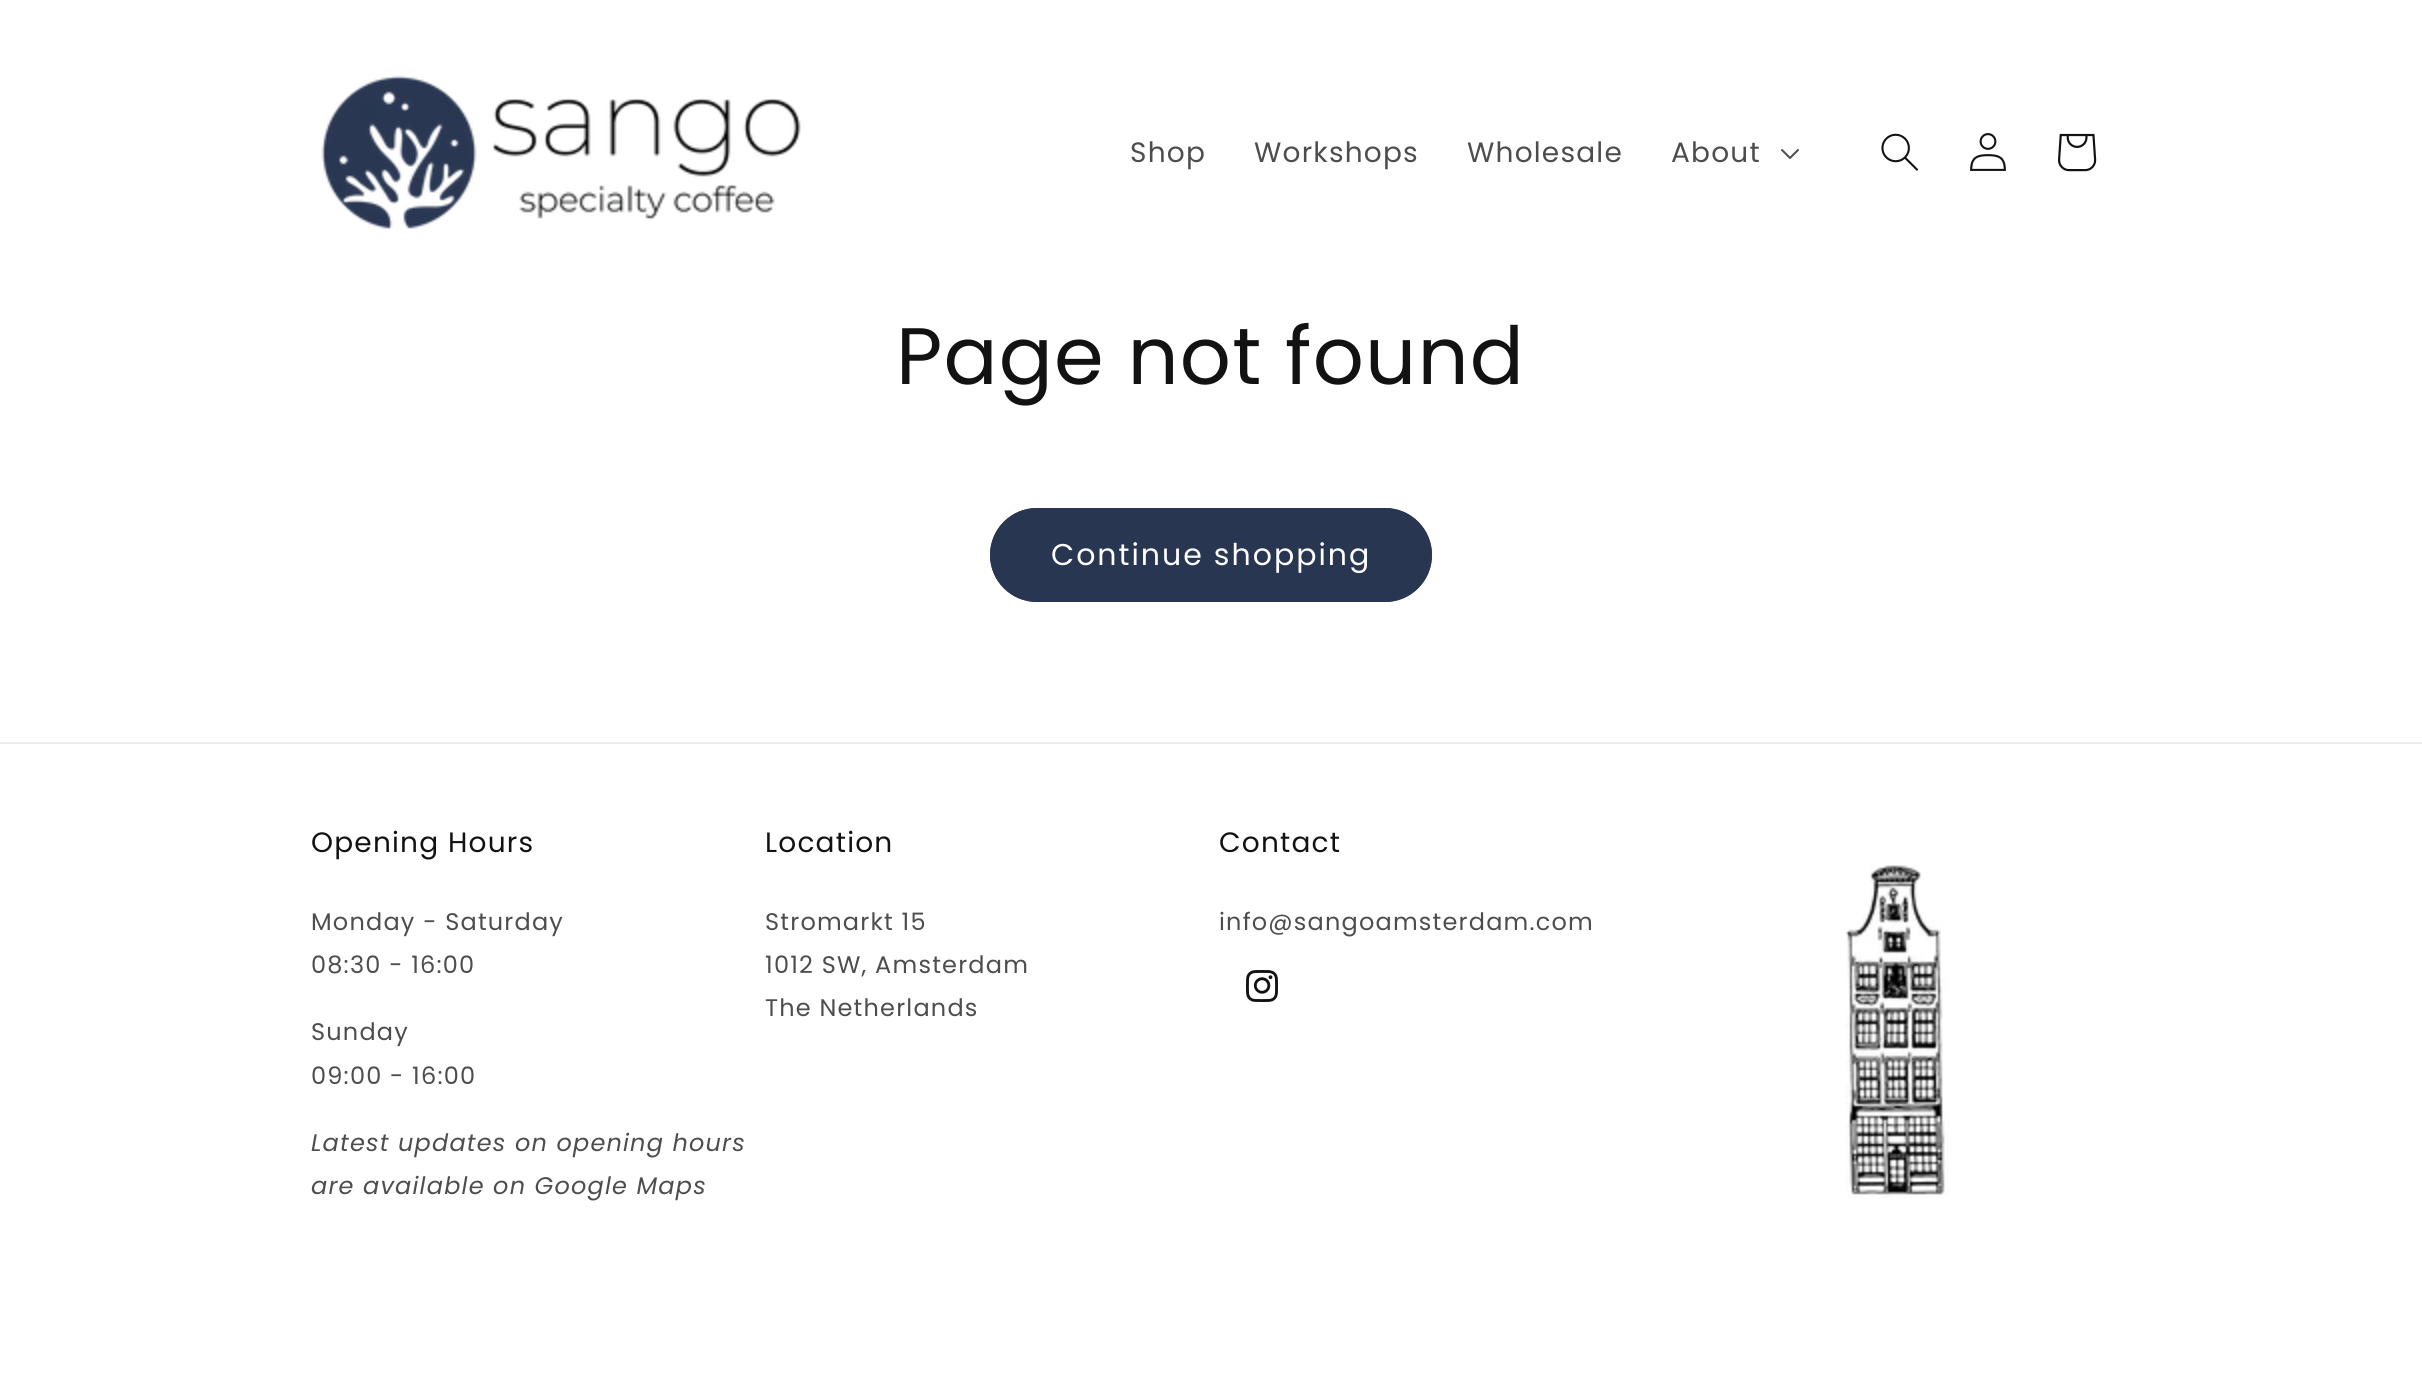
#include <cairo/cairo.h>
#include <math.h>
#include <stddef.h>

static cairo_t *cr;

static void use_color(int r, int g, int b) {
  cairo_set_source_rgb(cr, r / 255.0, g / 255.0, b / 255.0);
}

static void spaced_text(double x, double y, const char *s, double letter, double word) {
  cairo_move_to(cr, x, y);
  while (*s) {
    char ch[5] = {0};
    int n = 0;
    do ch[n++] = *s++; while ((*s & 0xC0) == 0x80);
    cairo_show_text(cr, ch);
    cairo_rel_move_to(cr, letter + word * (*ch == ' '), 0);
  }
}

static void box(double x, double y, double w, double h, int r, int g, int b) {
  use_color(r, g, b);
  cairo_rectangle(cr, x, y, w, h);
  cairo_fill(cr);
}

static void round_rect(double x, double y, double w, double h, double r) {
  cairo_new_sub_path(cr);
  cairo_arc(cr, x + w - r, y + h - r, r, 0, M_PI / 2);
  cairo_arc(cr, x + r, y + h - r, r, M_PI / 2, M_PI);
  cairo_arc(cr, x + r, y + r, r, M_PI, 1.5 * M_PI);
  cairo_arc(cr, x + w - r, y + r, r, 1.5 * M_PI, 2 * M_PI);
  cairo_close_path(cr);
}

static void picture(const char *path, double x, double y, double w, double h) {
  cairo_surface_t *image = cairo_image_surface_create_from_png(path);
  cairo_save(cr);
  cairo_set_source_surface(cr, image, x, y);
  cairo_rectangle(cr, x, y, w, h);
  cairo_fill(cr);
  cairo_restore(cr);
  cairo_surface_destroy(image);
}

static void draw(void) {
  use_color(255, 255, 255);
  cairo_paint(cr);
  picture("img_01.png", 321, 75, 480, 155);
  picture("img_02.png", 1781, 149, 18, 10);
  picture("img_03.png", 1881, 133, 37, 38);
  picture("img_04.png", 1970, 133, 36, 38);
  picture("img_05.png", 2058, 133, 39, 39);
  use_color(41, 54, 82);
  round_rect(990, 508, 442, 94, 47);
  cairo_fill(cr);
  round_rect(991, 509, 440, 92, 46);
  cairo_stroke(cr);
  box(0, 742, 2422, 2, 236, 236, 236);
  picture("img_06.png", 1246, 970, 32, 32);
  picture("img_07.png", 1845, 865, 104, 333);
  cairo_select_font_face(cr, "Poppins", CAIRO_FONT_SLANT_NORMAL, CAIRO_FONT_WEIGHT_NORMAL);
  cairo_set_font_size(cr, 28);
  use_color(77, 77, 77);
  spaced_text(1130, 162, "Shop", 1.2, 0);
  spaced_text(1254, 162, "Workshops", 1.2, 0);
  spaced_text(1467, 162, "Wholesale", 1.2, 0);
  spaced_text(1671, 162, "About", 1.2, 0);
  cairo_set_font_size(cr, 80);
  use_color(18, 18, 18);
  spaced_text(896, 384, "Page not found", 1.2, 0);
  cairo_set_font_size(cr, 30);
  use_color(255, 255, 255);
  spaced_text(1051, 565, "Continue shopping", 2, 0);
  cairo_set_font_size(cr, 28);
  use_color(18, 18, 18);
  spaced_text(311, 852, "Opening Hours", 1.2, 0);
  cairo_set_font_size(cr, 24);
  use_color(77, 77, 77);
  spaced_text(311, 930, "Monday - Saturday", 1.2, 0);
  spaced_text(311, 973, "08:30 - 16:00", 1.2, 0);
  spaced_text(311, 1040, "Sunday", 1.2, 0);
  spaced_text(311, 1084, "09:00 - 16:00", 1.2, 0);
  cairo_select_font_face(cr, "Poppins", CAIRO_FONT_SLANT_ITALIC, CAIRO_FONT_WEIGHT_NORMAL);
  spaced_text(311, 1151, "Latest updates on opening hours", 1.2, 0);
  spaced_text(311, 1194, "are available on Google Maps", 1.2, 0);
  cairo_select_font_face(cr, "Poppins", CAIRO_FONT_SLANT_NORMAL, CAIRO_FONT_WEIGHT_NORMAL);
  cairo_set_font_size(cr, 28);
  use_color(18, 18, 18);
  spaced_text(765, 852, "Location", 1.2, 0);
  cairo_set_font_size(cr, 24);
  use_color(77, 77, 77);
  spaced_text(765, 930, "Stromarkt 15", 1.2, 0);
  spaced_text(765, 973, "1012 SW, Amsterdam", 1.2, 0);
  spaced_text(765, 1016, "The Netherlands", 1.2, 0);
  cairo_set_font_size(cr, 28);
  use_color(18, 18, 18);
  spaced_text(1219, 852, "Contact", 1.2, 0);
  cairo_set_font_size(cr, 24);
  use_color(77, 77, 77);
  spaced_text(1219, 930, "info@sangoamsterdam.com", 1.2, 0);
}

int main(void) {
  cairo_surface_t *surface = cairo_image_surface_create(CAIRO_FORMAT_RGB24, 2422, 1373);
  cr = cairo_create(surface);
  cairo_font_options_t *options = cairo_font_options_create();
  cairo_font_options_set_hint_metrics(options, CAIRO_HINT_METRICS_OFF);
  cairo_font_options_set_hint_style(options, CAIRO_HINT_STYLE_NONE);
  cairo_set_font_options(cr, options);
  cairo_set_miter_limit(cr, 4);
  draw();
  cairo_surface_write_to_png(surface, "out.png");
  cairo_font_options_destroy(options);
  cairo_destroy(cr);
  cairo_surface_destroy(surface);
  return 0;
}
